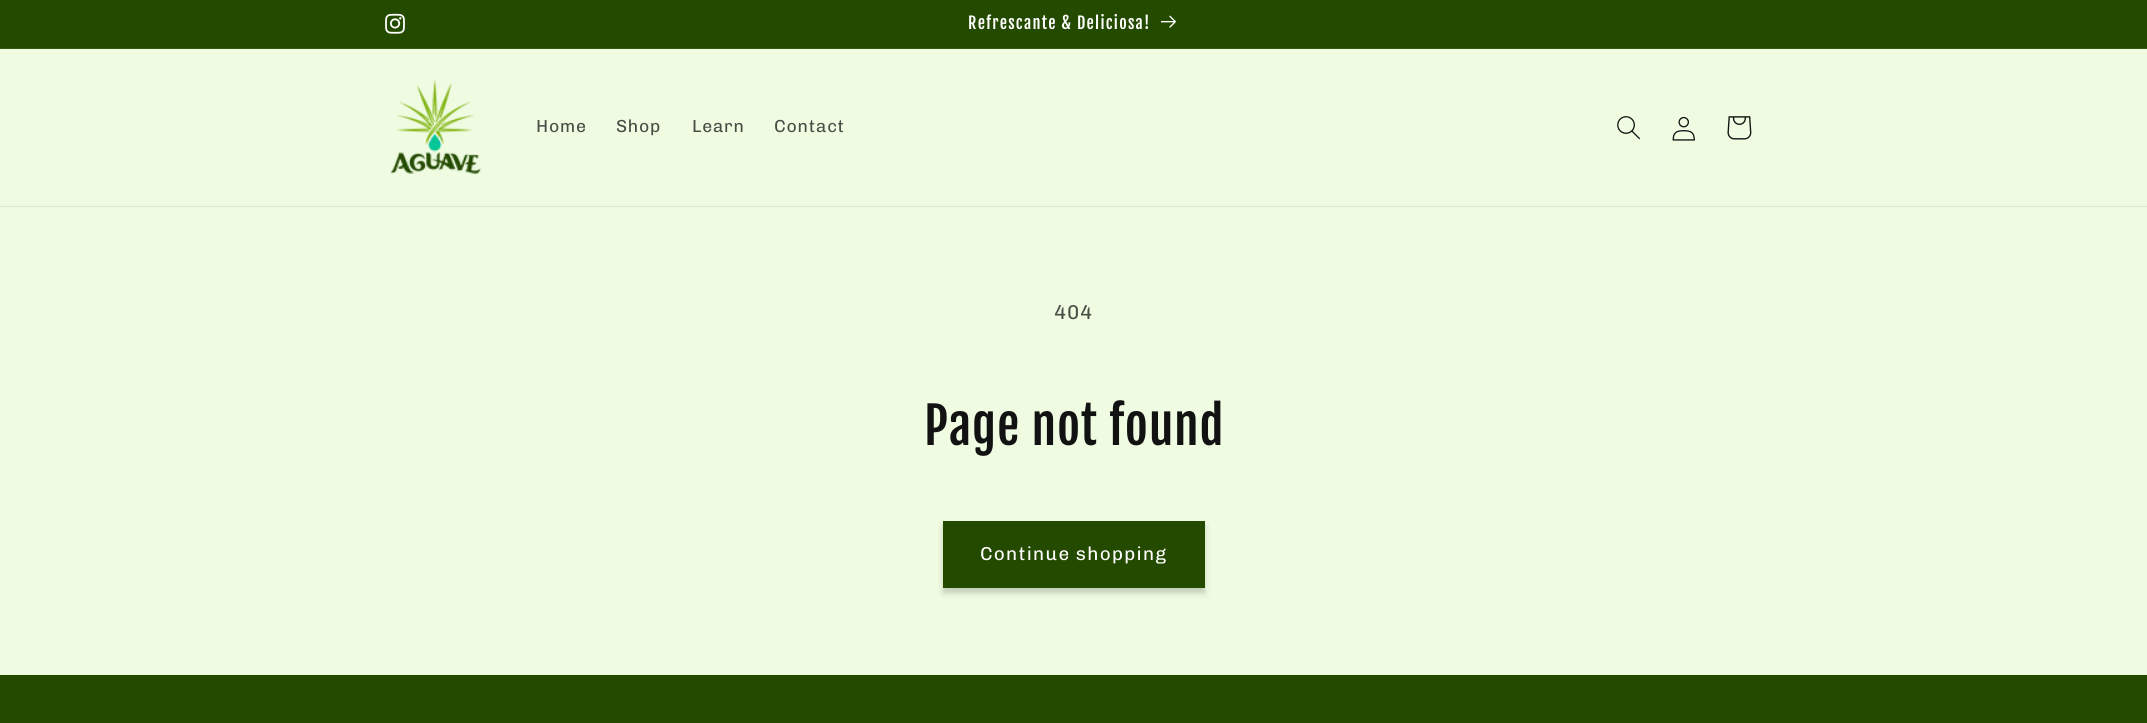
#include <cairo/cairo.h>
#include <math.h>
#include <stddef.h>

static cairo_t *cr;

static void use_color(int r, int g, int b) {
  cairo_set_source_rgb(cr, r / 255.0, g / 255.0, b / 255.0);
}

static void spaced_text(double x, double y, const char *s, double letter, double word) {
  cairo_move_to(cr, x, y);
  while (*s) {
    char ch[5] = {0};
    int n = 0;
    do ch[n++] = *s++; while ((*s & 0xC0) == 0x80);
    cairo_show_text(cr, ch);
    cairo_rel_move_to(cr, letter + word * (*ch == ' '), 0);
  }
}

static void box(double x, double y, double w, double h, int r, int g, int b) {
  use_color(r, g, b);
  cairo_rectangle(cr, x, y, w, h);
  cairo_fill(cr);
}

static void round_rect(double x, double y, double w, double h, double r) {
  cairo_new_sub_path(cr);
  cairo_arc(cr, x + w - r, y + h - r, r, 0, M_PI / 2);
  cairo_arc(cr, x + r, y + h - r, r, M_PI / 2, M_PI);
  cairo_arc(cr, x + r, y + r, r, M_PI, 1.5 * M_PI);
  cairo_arc(cr, x + w - r, y + r, r, 1.5 * M_PI, 2 * M_PI);
  cairo_close_path(cr);
}

static void shadow(double x, double y, double w, double h, double r, double blur, double alpha) {
  cairo_push_group_with_content(cr, CAIRO_CONTENT_ALPHA);
  cairo_set_operator(cr, CAIRO_OPERATOR_SOURCE);
  for (int i = 15; i >= -15 && fmin(w, h) + blur * i / 3 > 0; i -= 2) {
    double e = blur * i / 6;
    cairo_set_source_rgba(cr, 0, 0, 0, alpha * erfc((i - 1) / 8.5) / 2);
    round_rect(x - e, y - e, w + 2 * e, h + 2 * e, fmax(0, fmin(r + e + blur * .6, fmin(w, h) / 2 + e)));
    cairo_fill(cr);
  }
  cairo_pattern_t *soft = cairo_pop_group(cr);
  cairo_mask(cr, soft);
  cairo_pattern_destroy(soft);
}

static void picture(const char *path, double x, double y, double w, double h) {
  cairo_surface_t *image = cairo_image_surface_create_from_png(path);
  cairo_save(cr);
  cairo_set_source_surface(cr, image, x, y);
  cairo_rectangle(cr, x, y, w, h);
  cairo_fill(cr);
  cairo_restore(cr);
  cairo_surface_destroy(image);
}

static void draw(void) {
  use_color(239, 252, 226);
  cairo_paint(cr);
  box(0, 0, 2147, 48, 36, 74, 0);
  box(0, 48, 2147, 1, 54, 88, 20);
  picture("img_01.png", 385, 13, 20, 21);
  picture("img_02.png", 1161, 15, 15, 13);
  box(0, 206, 2147, 1, 221, 233, 209);
  picture("img_03.png", 390, 80, 92, 94);
  picture("img_04.png", 1617, 116, 23, 24);
  picture("img_05.png", 1672, 116, 23, 25);
  picture("img_06.png", 1727, 116, 25, 24);
  use_color(18, 18, 18);
  shadow(943, 526, 262, 67, 0, 3, 0.2);
  box(943, 521, 262, 67, 36, 74, 0);
  box(0, 675, 2147, 48, 36, 74, 0);
  cairo_select_font_face(cr, "Fjalla One", CAIRO_FONT_SLANT_NORMAL, CAIRO_FONT_WEIGHT_NORMAL);
  cairo_set_font_size(cr, 16.25);
  use_color(255, 255, 255);
  spaced_text(968, 29, "Refrescante & Deliciosa!", 1.25, 0);
  cairo_select_font_face(cr, "Chivo", CAIRO_FONT_SLANT_NORMAL, CAIRO_FONT_WEIGHT_NORMAL);
  cairo_set_font_size(cr, 17.5);
  use_color(73, 77, 70);
  spaced_text(536, 132, "Home", 0.75, 0);
  spaced_text(616, 132, "Shop", 0.75, 0);
  spaced_text(692, 132, "Learn", 0.75, 0);
  spaced_text(774, 132, "Contact", 0.75, 0);
  cairo_set_font_size(cr, 20);
  spaced_text(1054, 319, "404", 0.75, 0);
  cairo_select_font_face(cr, "Fjalla One", CAIRO_FONT_SLANT_NORMAL, CAIRO_FONT_WEIGHT_NORMAL);
  cairo_set_font_size(cr, 50);
  use_color(18, 18, 18);
  spaced_text(924, 445, "Page not found", 0.75, 0);
  cairo_select_font_face(cr, "Chivo", CAIRO_FONT_SLANT_NORMAL, CAIRO_FONT_WEIGHT_NORMAL);
  cairo_set_font_size(cr, 18.75);
  use_color(255, 255, 255);
  spaced_text(980, 560, "Continue shopping", 1.25, 0);
}

int main(void) {
  cairo_surface_t *surface = cairo_image_surface_create(CAIRO_FORMAT_RGB24, 2147, 723);
  cr = cairo_create(surface);
  cairo_font_options_t *options = cairo_font_options_create();
  cairo_font_options_set_hint_metrics(options, CAIRO_HINT_METRICS_OFF);
  cairo_font_options_set_hint_style(options, CAIRO_HINT_STYLE_NONE);
  cairo_set_font_options(cr, options);
  cairo_set_miter_limit(cr, 4);
  draw();
  cairo_surface_write_to_png(surface, "out.png");
  cairo_font_options_destroy(options);
  cairo_destroy(cr);
  cairo_surface_destroy(surface);
  return 0;
}
